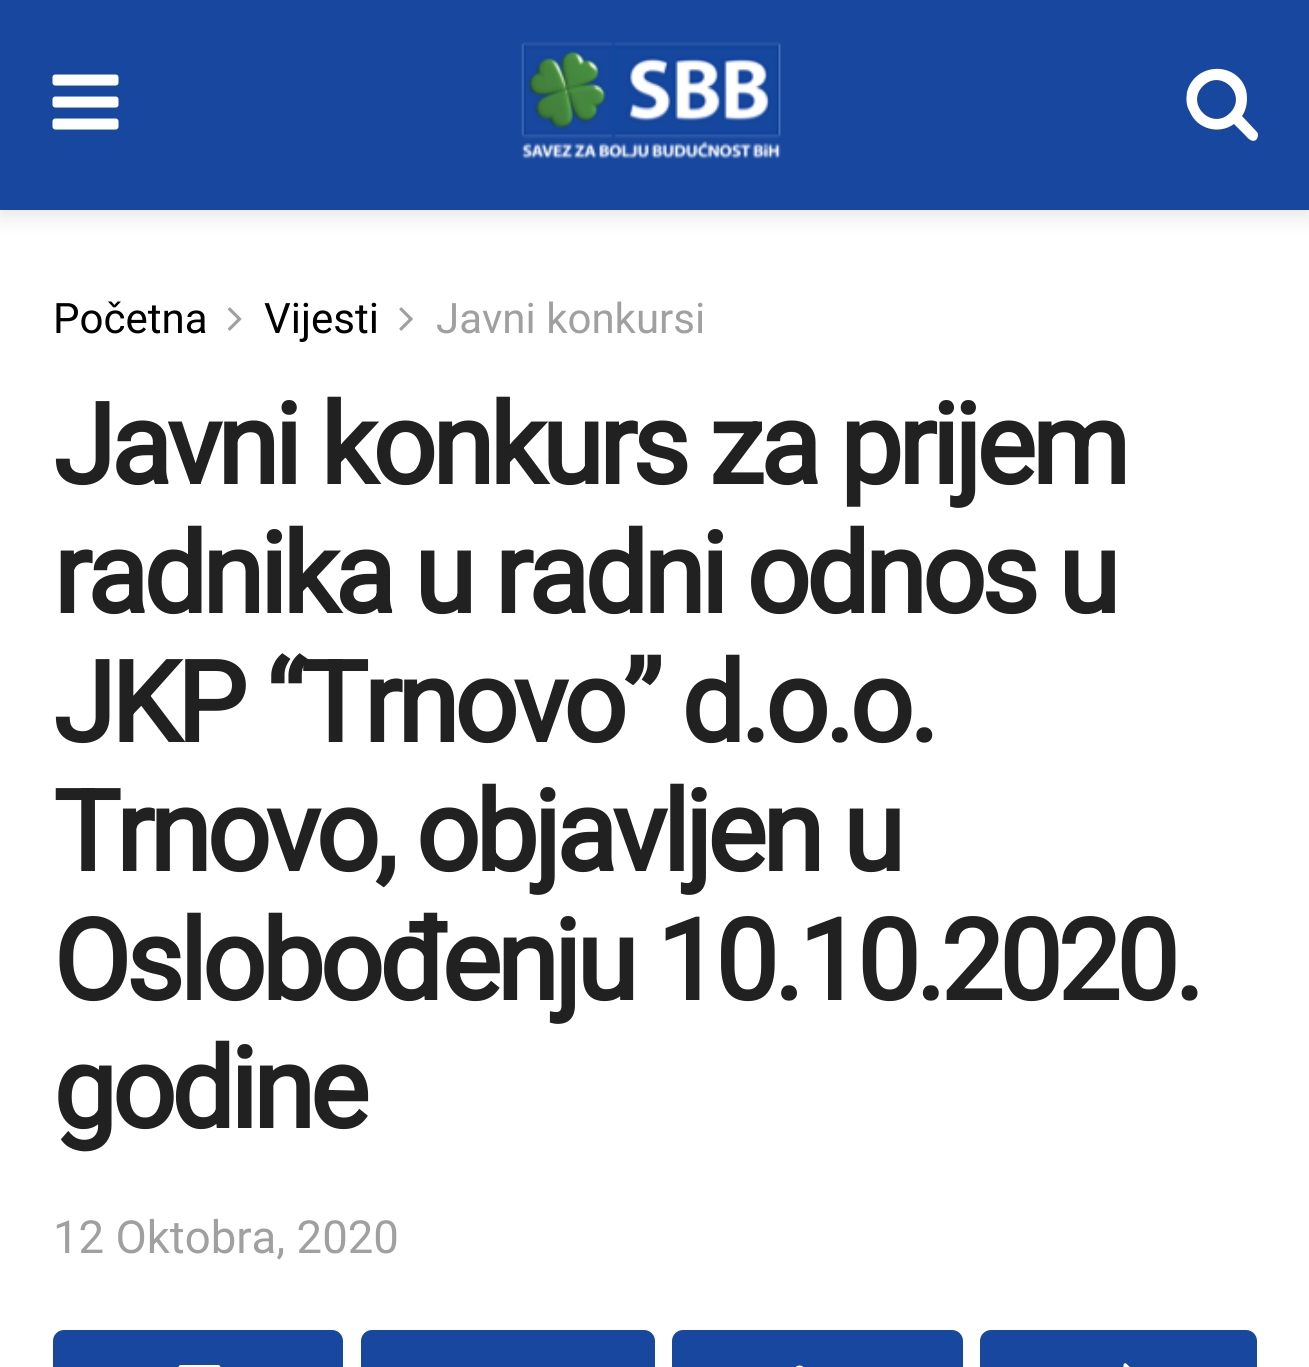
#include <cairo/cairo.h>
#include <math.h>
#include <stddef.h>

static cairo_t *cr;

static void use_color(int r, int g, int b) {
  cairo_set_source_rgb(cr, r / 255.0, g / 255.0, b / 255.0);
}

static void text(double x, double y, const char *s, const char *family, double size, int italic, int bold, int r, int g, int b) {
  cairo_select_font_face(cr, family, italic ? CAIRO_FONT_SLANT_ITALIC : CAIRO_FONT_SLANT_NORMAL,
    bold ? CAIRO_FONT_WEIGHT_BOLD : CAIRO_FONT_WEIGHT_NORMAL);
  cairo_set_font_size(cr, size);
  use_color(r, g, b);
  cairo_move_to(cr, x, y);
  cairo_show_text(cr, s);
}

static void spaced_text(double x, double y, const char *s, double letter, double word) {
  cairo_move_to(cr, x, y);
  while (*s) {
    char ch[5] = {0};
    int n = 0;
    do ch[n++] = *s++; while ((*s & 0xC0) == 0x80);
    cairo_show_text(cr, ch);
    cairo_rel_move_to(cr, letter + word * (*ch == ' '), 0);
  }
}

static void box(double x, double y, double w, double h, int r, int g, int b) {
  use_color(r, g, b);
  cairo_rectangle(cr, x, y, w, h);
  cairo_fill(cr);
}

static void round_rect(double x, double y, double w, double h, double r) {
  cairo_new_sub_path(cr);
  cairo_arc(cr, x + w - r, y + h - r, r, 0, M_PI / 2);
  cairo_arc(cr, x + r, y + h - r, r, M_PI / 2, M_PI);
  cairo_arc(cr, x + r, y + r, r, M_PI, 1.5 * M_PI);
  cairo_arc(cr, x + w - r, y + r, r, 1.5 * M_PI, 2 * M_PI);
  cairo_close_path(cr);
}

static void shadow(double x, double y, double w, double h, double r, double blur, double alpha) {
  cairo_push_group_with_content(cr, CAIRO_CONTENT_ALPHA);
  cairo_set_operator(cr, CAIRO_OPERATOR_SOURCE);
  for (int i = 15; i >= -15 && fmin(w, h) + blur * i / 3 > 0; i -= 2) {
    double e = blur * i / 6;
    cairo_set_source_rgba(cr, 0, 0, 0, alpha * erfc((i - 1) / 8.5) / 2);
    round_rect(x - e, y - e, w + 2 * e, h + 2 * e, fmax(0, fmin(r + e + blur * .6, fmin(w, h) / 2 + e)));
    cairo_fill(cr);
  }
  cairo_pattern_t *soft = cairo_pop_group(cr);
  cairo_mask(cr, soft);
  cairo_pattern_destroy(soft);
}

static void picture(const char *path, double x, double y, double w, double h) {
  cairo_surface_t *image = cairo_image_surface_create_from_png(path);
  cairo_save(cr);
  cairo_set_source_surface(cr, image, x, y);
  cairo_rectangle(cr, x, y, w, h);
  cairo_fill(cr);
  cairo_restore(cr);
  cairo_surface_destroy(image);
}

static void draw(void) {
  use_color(255, 255, 255);
  cairo_paint(cr);
  use_color(0, 0, 0);
  shadow(0, 7, 1309, 210, 0, 10.5, 0.1);
  box(0, 0, 1309, 210, 23, 71, 158);
  picture("img_01.png", 52, 74, 67, 56);
  picture("img_02.png", 521, 42, 260, 117);
  use_color(255, 255, 255);
  cairo_new_path(cr);
  cairo_move_to(cr, 1230, 113);
  cairo_curve_to(cr, 1248, 95, 1221, 68, 1203, 86);
  cairo_curve_to(cr, 1185, 104, 1212, 131, 1230, 113);
  cairo_close_path(cr);
  cairo_move_to(cr, 1258, 135);
  cairo_curve_to(cr, 1258, 137, 1257, 139, 1256, 140);
  cairo_curve_to(cr, 1251, 143, 1247, 137, 1244, 134);
  cairo_line_to(cr, 1234, 124);
  cairo_curve_to(cr, 1219, 135, 1197, 129, 1190, 112);
  cairo_curve_to(cr, 1186, 106, 1186, 99, 1187, 92);
  cairo_curve_to(cr, 1195, 62, 1237, 61, 1246, 90);
  cairo_curve_to(cr, 1248, 99, 1247, 109, 1242, 116);
  cairo_line_to(cr, 1256, 131);
  cairo_curve_to(cr, 1257, 132, 1258, 133, 1258, 135);
  cairo_close_path(cr);
  cairo_fill(cr);
  picture("img_03.png", 227, 307, 15, 24);
  picture("img_04.png", 399, 307, 14, 24);
  use_color(23, 71, 158);
  round_rect(53, 1330, 290, 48, 11);
  cairo_fill(cr);
  picture("img_05.png", 178, 1365, 43, 2);
  round_rect(361, 1330, 294, 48, 11);
  cairo_fill(cr);
  round_rect(672, 1330, 291, 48, 11);
  cairo_fill(cr);
  picture("img_06.png", 795, 1365, 9, 2);
  round_rect(980, 1330, 277, 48, 11);
  cairo_fill(cr);
  picture("img_07.png", 1123, 1363, 7, 4);
  text(53, 333, "Početna", "Roboto", 42, 0, 0, 0, 0, 0);
  text(264, 333, "Vijesti", "Roboto", 42, 0, 0, 0, 0, 0);
  text(436, 333, "Javni konkursi", "Roboto", 42, 0, 0, 160, 160, 160);
  cairo_select_font_face(cr, "Roboto", CAIRO_FONT_SLANT_NORMAL, CAIRO_FONT_WEIGHT_BOLD);
  cairo_set_font_size(cr, 112);
  use_color(33, 33, 33);
  spaced_text(53, 484, "Javni konkurs za prijem", -4.5, 0);
  spaced_text(53, 613, "radnika u radni odnos u", -4.5, 0);
  spaced_text(53, 742, "JKP “Trnovo” d.o.o.", -4.5, 0);
  spaced_text(53, 871, "Trnovo, objavljen u", -4.5, 0);
  spaced_text(53, 1000, "Oslobođenju 10.10.2020.", -4.5, 0);
  spaced_text(53, 1128, "godine", -4.5, 0);
  text(53, 1253, "12 Oktobra, 2020", "Roboto", 45.5, 0, 0, 160, 160, 160);
}

int main(void) {
  cairo_surface_t *surface = cairo_image_surface_create(CAIRO_FORMAT_RGB24, 1309, 1367);
  cr = cairo_create(surface);
  cairo_font_options_t *options = cairo_font_options_create();
  cairo_font_options_set_hint_metrics(options, CAIRO_HINT_METRICS_OFF);
  cairo_font_options_set_hint_style(options, CAIRO_HINT_STYLE_NONE);
  cairo_set_font_options(cr, options);
  cairo_set_miter_limit(cr, 4);
  draw();
  cairo_surface_write_to_png(surface, "out.png");
  cairo_font_options_destroy(options);
  cairo_destroy(cr);
  cairo_surface_destroy(surface);
  return 0;
}
